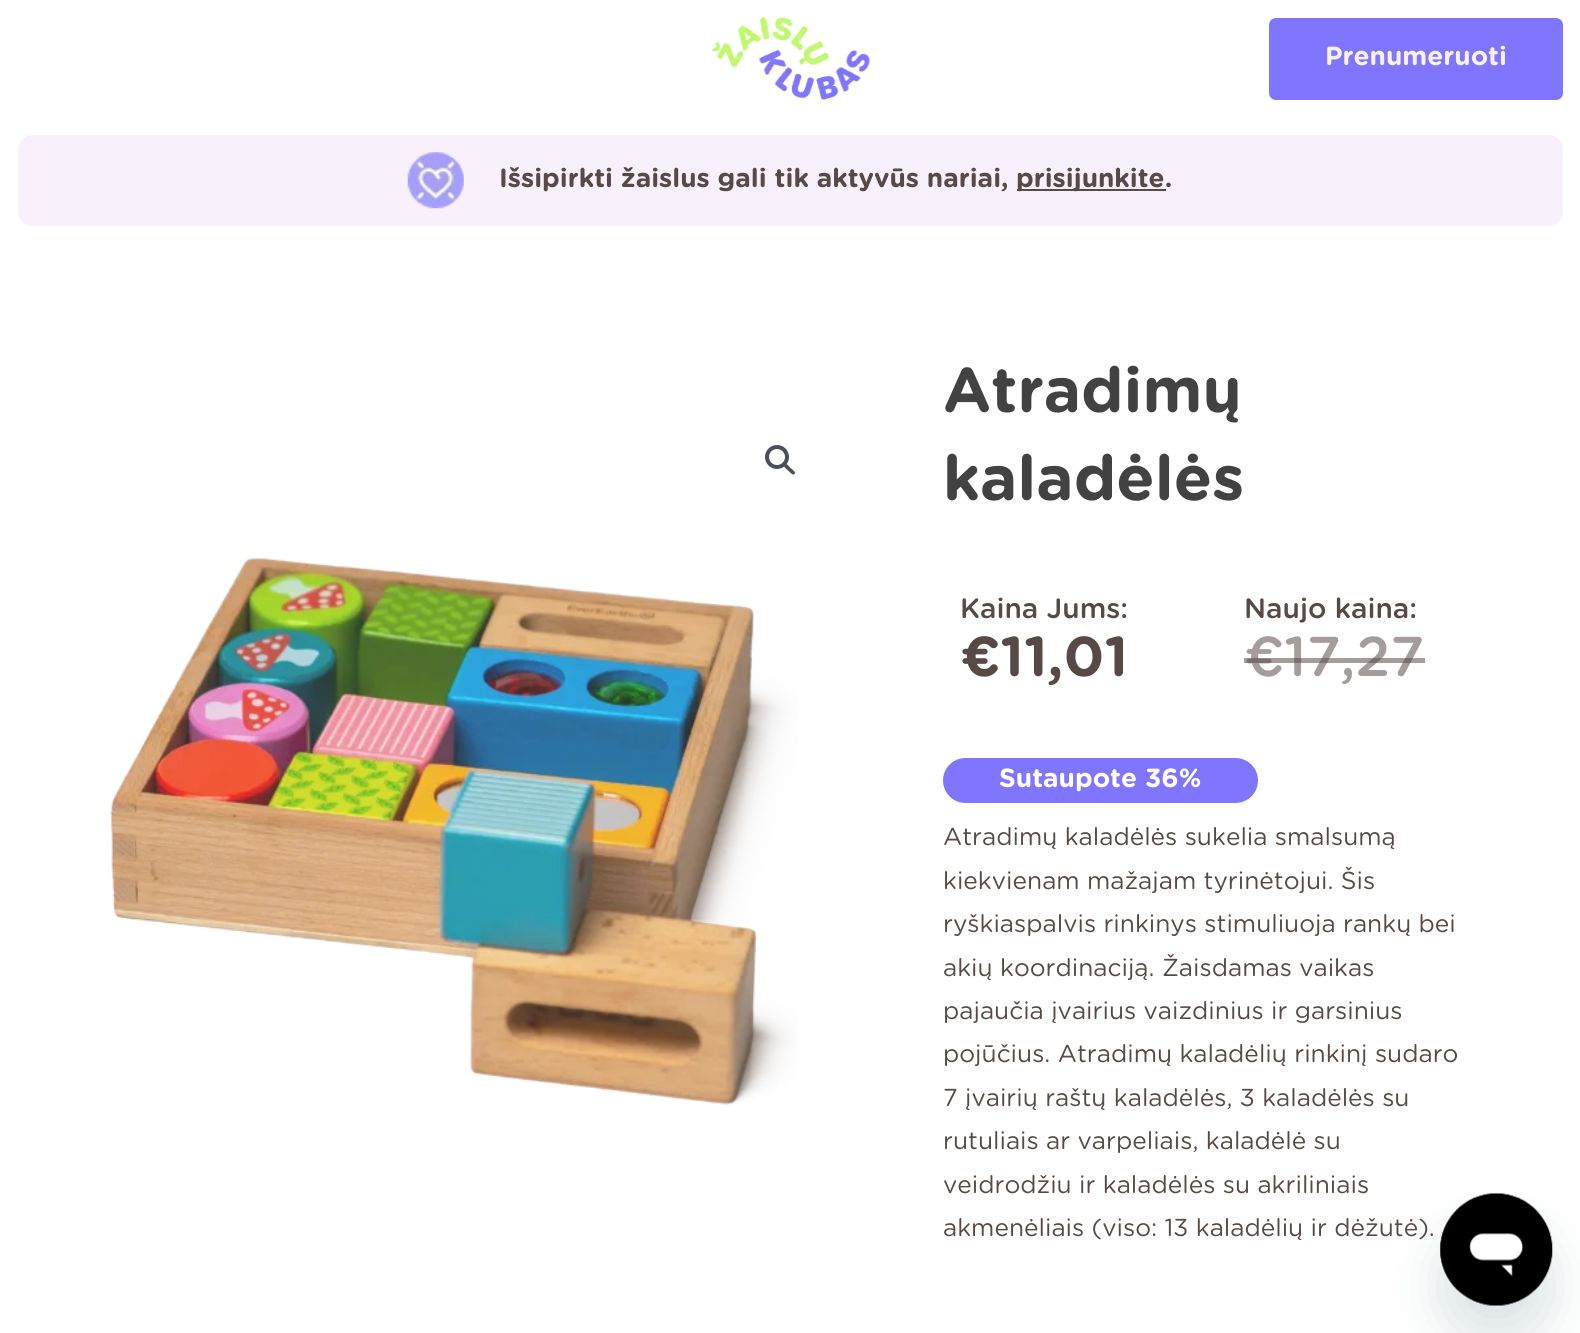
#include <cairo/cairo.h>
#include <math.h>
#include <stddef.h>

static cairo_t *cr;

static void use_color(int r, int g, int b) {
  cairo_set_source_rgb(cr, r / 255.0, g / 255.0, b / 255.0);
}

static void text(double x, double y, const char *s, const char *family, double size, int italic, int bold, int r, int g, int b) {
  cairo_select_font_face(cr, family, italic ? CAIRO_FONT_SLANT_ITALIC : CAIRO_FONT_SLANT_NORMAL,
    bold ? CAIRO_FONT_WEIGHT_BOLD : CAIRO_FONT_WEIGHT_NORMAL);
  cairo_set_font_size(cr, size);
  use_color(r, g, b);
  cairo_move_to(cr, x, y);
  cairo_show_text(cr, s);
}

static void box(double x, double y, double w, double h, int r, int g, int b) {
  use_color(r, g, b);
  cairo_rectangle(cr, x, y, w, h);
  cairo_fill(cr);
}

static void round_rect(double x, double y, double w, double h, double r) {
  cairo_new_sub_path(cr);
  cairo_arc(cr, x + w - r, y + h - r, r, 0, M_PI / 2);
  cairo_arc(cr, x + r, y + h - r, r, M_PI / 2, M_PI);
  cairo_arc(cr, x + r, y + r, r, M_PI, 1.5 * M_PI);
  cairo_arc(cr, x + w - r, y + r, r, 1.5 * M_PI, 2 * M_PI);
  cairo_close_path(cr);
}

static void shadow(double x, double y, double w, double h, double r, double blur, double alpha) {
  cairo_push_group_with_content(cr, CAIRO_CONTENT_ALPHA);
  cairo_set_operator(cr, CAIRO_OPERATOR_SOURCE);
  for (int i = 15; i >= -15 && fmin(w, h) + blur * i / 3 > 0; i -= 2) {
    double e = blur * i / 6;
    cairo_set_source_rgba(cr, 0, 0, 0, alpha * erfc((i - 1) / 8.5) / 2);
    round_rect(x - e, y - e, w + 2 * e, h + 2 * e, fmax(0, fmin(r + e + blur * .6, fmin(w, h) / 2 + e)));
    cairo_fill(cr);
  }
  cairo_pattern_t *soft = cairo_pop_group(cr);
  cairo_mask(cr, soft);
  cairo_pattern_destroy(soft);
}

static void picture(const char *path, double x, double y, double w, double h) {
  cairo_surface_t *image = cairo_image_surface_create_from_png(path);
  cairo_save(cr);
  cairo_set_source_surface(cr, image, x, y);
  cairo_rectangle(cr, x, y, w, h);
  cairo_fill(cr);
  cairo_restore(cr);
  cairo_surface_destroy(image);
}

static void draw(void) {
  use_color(255, 255, 255);
  cairo_paint(cr);
  picture("img_01.png", 712, 17, 158, 83);
  use_color(128, 117, 255);
  round_rect(1269, 18, 294, 82, 7);
  cairo_fill(cr);
  use_color(248, 240, 251);
  round_rect(18, 135, 1545, 91, 14);
  cairo_fill(cr);
  picture("img_02.png", 407, 152, 57, 57);
  box(1017, 189, 149, 2, 86, 73, 70);
  cairo_arc(cr, 777, 457, 10, 0, 2 * M_PI);
  use_color(75, 79, 88);
  cairo_set_line_width(cr, 4);
  cairo_stroke(cr);
  cairo_new_path(cr);
  cairo_move_to(cr, 784.5, 464.5);
  cairo_curve_to(cr, 786.5, 462.5, 789.5, 467, 790.5, 468);
  cairo_curve_to(cr, 791.5, 469, 796.5, 472, 794.5, 474);
  cairo_curve_to(cr, 792.5, 476, 789.5, 471.5, 788, 470.5);
  cairo_curve_to(cr, 787, 469.5, 782.5, 466.5, 784.5, 464.5);
  cairo_close_path(cr);
  cairo_fill(cr);
  picture("img_03.png", 110, 557, 687, 548);
  use_color(128, 117, 255);
  round_rect(943, 758, 315, 45, 22.5);
  cairo_fill(cr);
  use_color(23, 73, 77);
  shadow(1440, 1229, 112, 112, 56, 26, 0.15);
  picture("img_04.png", 1440, 1193, 113, 113);
  text(1325, 65, "Prenumeruoti", "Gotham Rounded", 26.25, 0, 1, 248, 240, 251);
  text(499, 187, "Išsipirkti žaislus gali tik aktyvūs nariai,", "Gotham Rounded", 26.25, 0, 1, 86, 73, 70);
  text(1016, 187, "prisijunkite.", "Gotham Rounded", 26.25, 0, 1, 86, 73, 70);
  text(943, 412, "Atradimų", "Gotham Rounded", 63, 0, 1, 66, 66, 66);
  text(943, 500, "kaladėlės", "Gotham Rounded", 63, 0, 1, 66, 66, 66);
  text(960, 618, "Kaina Jums:", "Gotham Rounded Medium", 28, 0, 0, 86, 73, 70);
  text(960, 676, "€11,01", "Gotham Rounded", 56, 0, 1, 86, 73, 70);
  text(1244, 618, "Naujo kaina:", "Gotham Rounded Medium", 28, 0, 0, 86, 73, 70);
  text(1244, 676, "€17,27", "Gotham Rounded Medium", 56, 0, 0, 164, 157, 155);
  cairo_set_source_rgba(cr, 0.337, 0.286, 0.275, 0.54);
  cairo_rectangle(cr, 1244, 658, 41, 5);
  cairo_fill(cr);
  cairo_rectangle(cr, 1285, 658, 140, 5);
  cairo_fill(cr);
  text(999, 787, "Sutaupote 36%", "Gotham Rounded", 26.25, 0, 1, 255, 255, 255);
  text(943, 845, "Atradimų kaladėlės sukelia smalsumą", "Gotham Rounded", 24.5, 0, 0, 86, 73, 70);
  text(943, 889, "kiekvienam mažajam tyrinėtojui. Šis", "Gotham Rounded", 24.5, 0, 0, 86, 73, 70);
  text(943, 932, "ryškiaspalvis rinkinys stimuliuoja rankų bei", "Gotham Rounded", 24.5, 0, 0, 86, 73, 70);
  text(943, 976, "akių koordinaciją. Žaisdamas vaikas", "Gotham Rounded", 24.5, 0, 0, 86, 73, 70);
  text(943, 1019, "pajaučia įvairius vaizdinius ir garsinius", "Gotham Rounded", 24.5, 0, 0, 86, 73, 70);
  text(943, 1062, "pojūčius. Atradimų kaladėlių rinkinį sudaro", "Gotham Rounded", 24.5, 0, 0, 86, 73, 70);
  text(943, 1106, "7 įvairių raštų kaladėlės, 3 kaladėlės su", "Gotham Rounded", 24.5, 0, 0, 86, 73, 70);
  text(943, 1149, "rutuliais ar varpeliais, kaladėlė su", "Gotham Rounded", 24.5, 0, 0, 86, 73, 70);
  text(943, 1193, "veidrodžiu ir kaladėlės su akriliniais", "Gotham Rounded", 24.5, 0, 0, 86, 73, 70);
  text(943, 1236, "akmenėliais (viso: 13 kaladėlių ir dėžutė).", "Gotham Rounded", 24.5, 0, 0, 86, 73, 70);
}

int main(void) {
  cairo_surface_t *surface = cairo_image_surface_create(CAIRO_FORMAT_RGB24, 1580, 1333);
  cr = cairo_create(surface);
  cairo_font_options_t *options = cairo_font_options_create();
  cairo_font_options_set_hint_metrics(options, CAIRO_HINT_METRICS_OFF);
  cairo_font_options_set_hint_style(options, CAIRO_HINT_STYLE_NONE);
  cairo_set_font_options(cr, options);
  cairo_set_miter_limit(cr, 4);
  draw();
  cairo_surface_write_to_png(surface, "out.png");
  cairo_font_options_destroy(options);
  cairo_destroy(cr);
  cairo_surface_destroy(surface);
  return 0;
}
